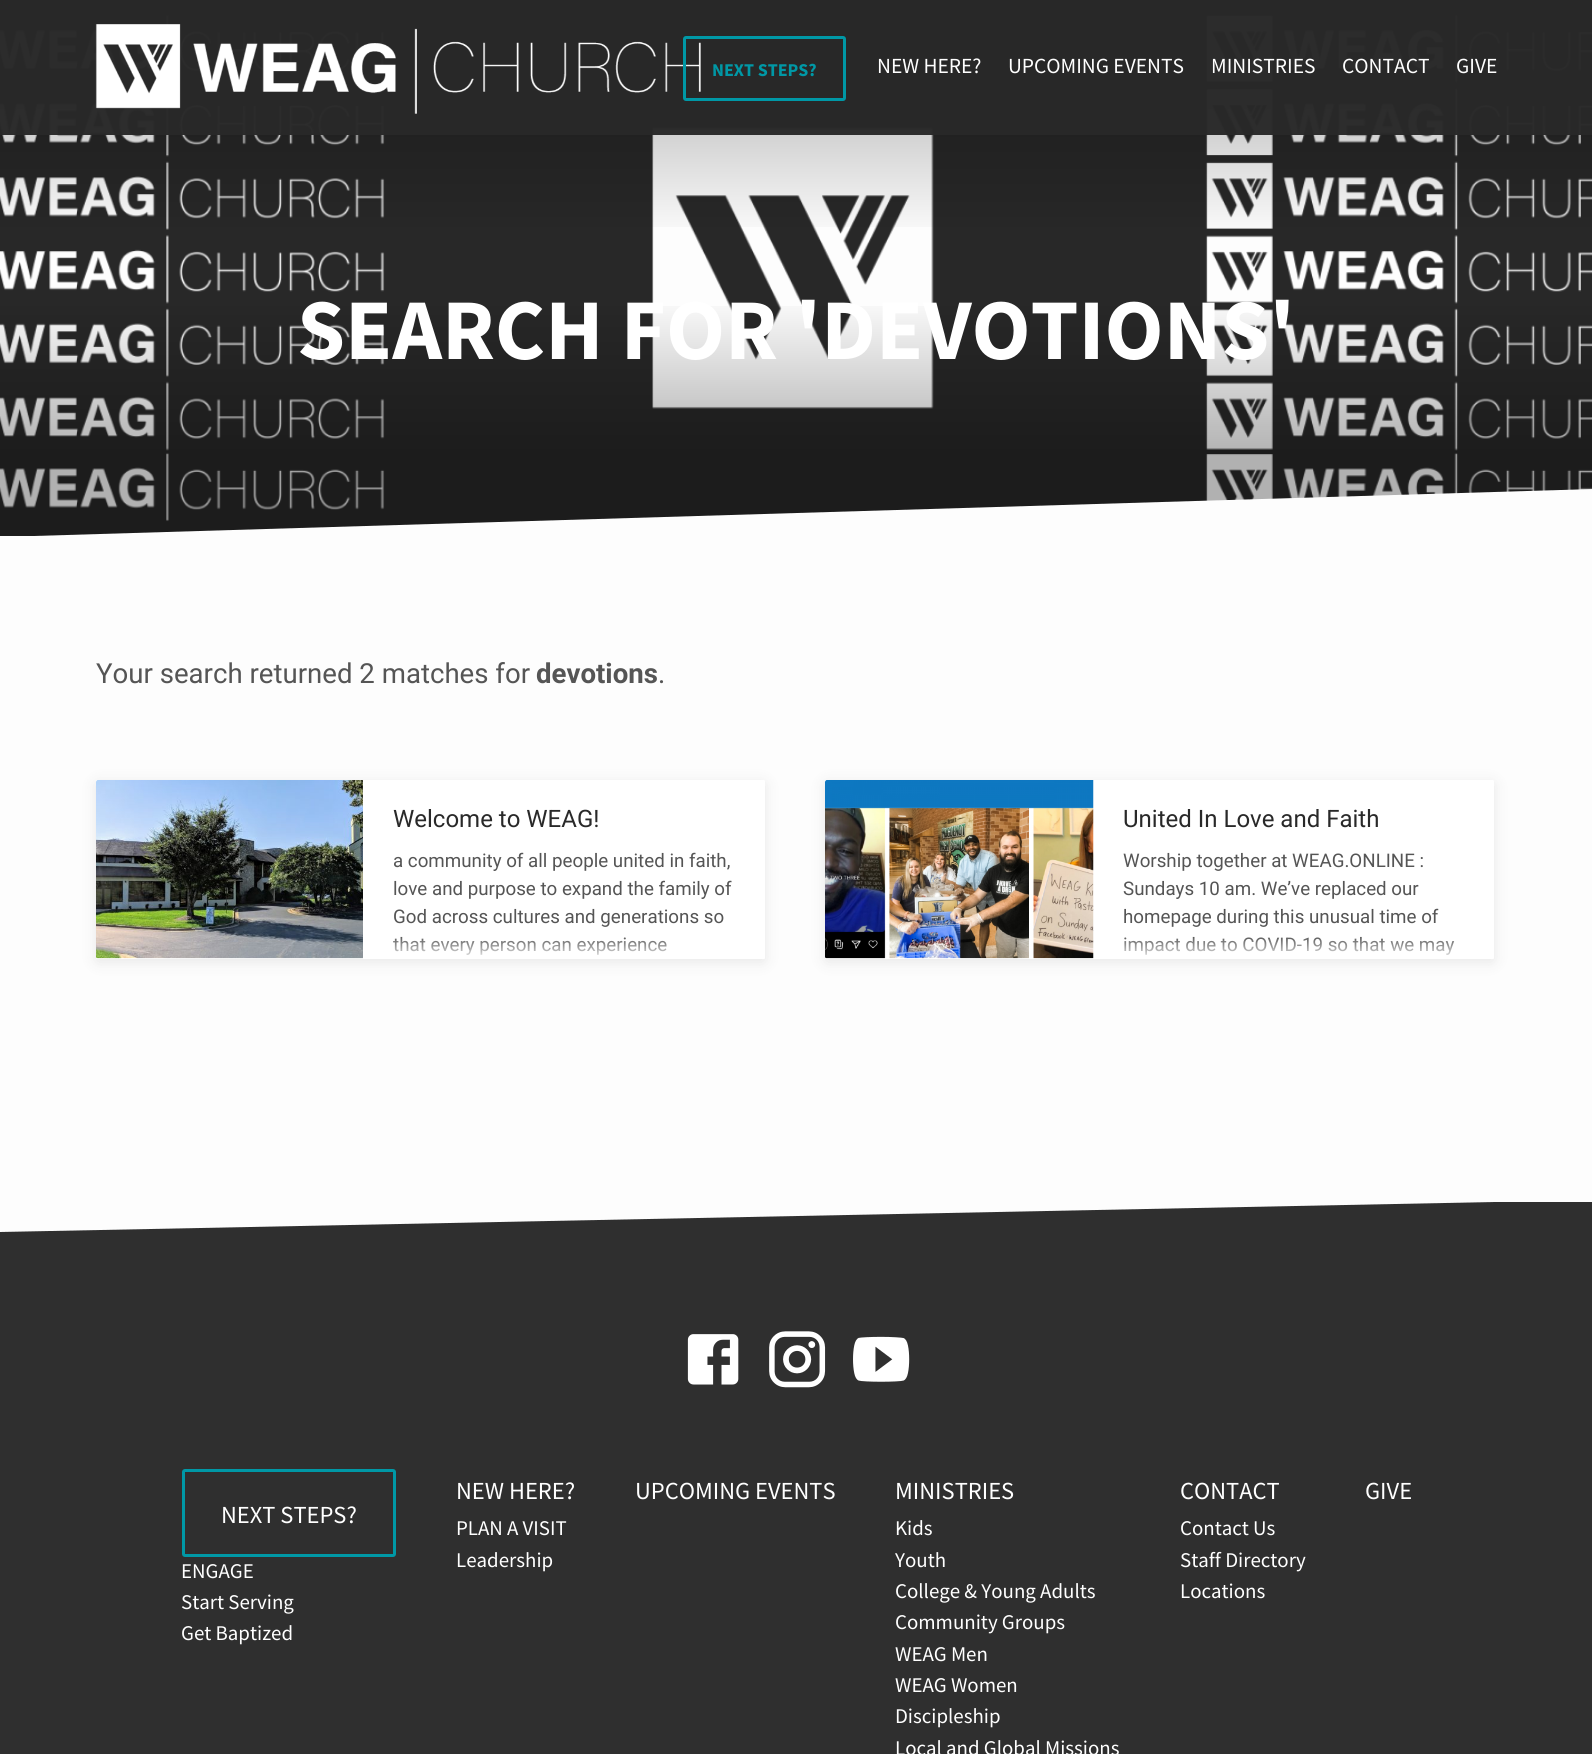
#include <cairo/cairo.h>
#include <math.h>
#include <stddef.h>

static cairo_t *cr;

static void use_color(int r, int g, int b) {
  cairo_set_source_rgb(cr, r / 255.0, g / 255.0, b / 255.0);
}

static void text(double x, double y, const char *s, const char *family, double size, int italic, int bold, int r, int g, int b) {
  cairo_select_font_face(cr, family, italic ? CAIRO_FONT_SLANT_ITALIC : CAIRO_FONT_SLANT_NORMAL,
    bold ? CAIRO_FONT_WEIGHT_BOLD : CAIRO_FONT_WEIGHT_NORMAL);
  cairo_set_font_size(cr, size);
  use_color(r, g, b);
  cairo_move_to(cr, x, y);
  cairo_show_text(cr, s);
}

static void box(double x, double y, double w, double h, int r, int g, int b) {
  use_color(r, g, b);
  cairo_rectangle(cr, x, y, w, h);
  cairo_fill(cr);
}

static void round_rect(double x, double y, double w, double h, double r) {
  cairo_new_sub_path(cr);
  cairo_arc(cr, x + w - r, y + h - r, r, 0, M_PI / 2);
  cairo_arc(cr, x + r, y + h - r, r, M_PI / 2, M_PI);
  cairo_arc(cr, x + r, y + r, r, M_PI, 1.5 * M_PI);
  cairo_arc(cr, x + w - r, y + r, r, 1.5 * M_PI, 2 * M_PI);
  cairo_close_path(cr);
}

static void shadow(double x, double y, double w, double h, double r, double blur, double alpha) {
  cairo_push_group_with_content(cr, CAIRO_CONTENT_ALPHA);
  cairo_set_operator(cr, CAIRO_OPERATOR_SOURCE);
  for (int i = 15; i >= -15 && fmin(w, h) + blur * i / 3 > 0; i -= 2) {
    double e = blur * i / 6;
    cairo_set_source_rgba(cr, 0, 0, 0, alpha * erfc((i - 1) / 8.5) / 2);
    round_rect(x - e, y - e, w + 2 * e, h + 2 * e, fmax(0, fmin(r + e + blur * .6, fmin(w, h) / 2 + e)));
    cairo_fill(cr);
  }
  cairo_pattern_t *soft = cairo_pop_group(cr);
  cairo_mask(cr, soft);
  cairo_pattern_destroy(soft);
}

static void picture(const char *path, double x, double y, double w, double h) {
  cairo_surface_t *image = cairo_image_surface_create_from_png(path);
  cairo_save(cr);
  cairo_set_source_surface(cr, image, x, y);
  cairo_rectangle(cr, x, y, w, h);
  cairo_fill(cr);
  cairo_restore(cr);
  cairo_surface_destroy(image);
}

static void draw(void) {
  cairo_pattern_t *gradient;
  use_color(253, 253, 253);
  cairo_paint(cr);
  box(0, 0, 1592, 536, 47, 47, 47);
  picture("img_02.png", 0, 0, 1592, 536);
  gradient = cairo_pattern_create_linear(797, 536, 797, 0);
  cairo_pattern_add_color_stop_rgba(gradient, 0, 0, 0, 0, 0);
  cairo_pattern_add_color_stop_rgba(gradient, 0.55, 0, 0, 0, 0);
  cairo_pattern_add_color_stop_rgba(gradient, 0.85, 0, 0, 0, 0.25);
  cairo_pattern_add_color_stop_rgba(gradient, 1, 0, 0, 0, 0.25);
  cairo_set_source(cr, gradient);
  cairo_pattern_destroy(gradient);
  cairo_rectangle(cr, 0, 0, 1592, 227);
  cairo_fill(cr);
  cairo_set_source_rgba(cr, 0.161, 0.161, 0.161, 0.97);
  cairo_rectangle(cr, 0, 0, 1592, 135);
  cairo_fill(cr);
  picture("img_01.png", 95, 24, 606, 90);
  round_rect(684.5, 37.5, 160, 62, 1.5);
  use_color(0, 152, 166);
  cairo_set_line_width(cr, 3);
  cairo_stroke(cr);
  gradient = cairo_pattern_create_linear(797, 0, 797, 536);
  cairo_pattern_add_color_stop_rgba(gradient, 0, 0, 0, 0, 0);
  cairo_pattern_add_color_stop_rgba(gradient, 0.55, 0, 0, 0, 0);
  cairo_pattern_add_color_stop_rgba(gradient, 0.85, 0, 0, 0, 0.3);
  cairo_pattern_add_color_stop_rgba(gradient, 1, 0, 0, 0, 0.3);
  cairo_set_source(cr, gradient);
  cairo_pattern_destroy(gradient);
  cairo_rectangle(cr, 0, 306, 1592, 230);
  cairo_fill(cr);
  use_color(253, 253, 253);
  cairo_new_path(cr);
  cairo_move_to(cr, 0, 537);
  cairo_line_to(cr, 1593, 489);
  cairo_line_to(cr, 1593, 537);
  cairo_close_path(cr);
  cairo_fill(cr);
  use_color(0, 0, 0);
  shadow(96, 783, 669, 179, 1.5, 7.5, 0.09);
  use_color(255, 255, 255);
  round_rect(96, 780, 669, 179, 1.5);
  cairo_fill(cr);
  use_color(0, 0, 0);
  shadow(825, 783, 669, 179, 1.5, 7.5, 0.09);
  use_color(255, 255, 255);
  round_rect(825, 780, 669, 179, 1.5);
  cairo_fill(cr);
  box(0, 1202, 1592, 552, 47, 47, 47);
  use_color(253, 253, 253);
  cairo_new_path(cr);
  cairo_move_to(cr, 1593, 1200);
  cairo_line_to(cr, 0, 1232);
  cairo_line_to(cr, 0, 1200);
  cairo_close_path(cr);
  cairo_fill(cr);
  picture("img_05.png", 687, 1334, 52, 51);
  picture("img_06.png", 769, 1331, 57, 57);
  picture("img_07.png", 853, 1336, 57, 46);
  round_rect(183.5, 1470.5, 211, 85, 1.5);
  use_color(0, 152, 166);
  cairo_stroke(cr);
  text(712, 76, "NEXT STEPS?", "Source Sans Pro", 18, 0, 1, 0, 152, 166);
  text(877, 73, "NEW HERE?", "Source Sans Pro", 21.5, 0, 0, 255, 255, 255);
  text(1008, 73, "UPCOMING EVENTS", "Source Sans Pro", 21.5, 0, 0, 255, 255, 255);
  text(1211, 73, "MINISTRIES", "Source Sans Pro", 21.5, 0, 0, 255, 255, 255);
  text(1342, 73, "CONTACT", "Source Sans Pro", 21.5, 0, 0, 255, 255, 255);
  text(1456, 73, "GIVE", "Source Sans Pro", 21.5, 0, 0, 255, 255, 255);
  text(297, 359, "SEARCH FOR 'DEVOTIONS'", "Source Sans Pro", 86.4, 0, 1, 255, 255, 255);
  text(96, 683, "Your search returned 2 matches for", "Roboto", 27.6, 0, 0, 85, 85, 85);
  text(536, 683, "devotions", "Roboto", 27.6, 0, 1, 85, 85, 85);
  text(658, 683, ".", "Roboto", 27.6, 0, 0, 85, 85, 85);
  text(393, 827, "Welcome to WEAG!", "Roboto", 24, 0, 0, 41, 41, 41);
  text(393, 867, "a community of all people united in faith,", "Roboto", 18.75, 0, 0, 85, 85, 85);
  text(393, 895, "love and purpose to expand the family of", "Roboto", 18.75, 0, 0, 85, 85, 85);
  text(393, 923, "God across cultures and generations so", "Roboto", 18.75, 0, 0, 85, 85, 85);
  text(393, 951, "that every person can experience", "Roboto", 18.75, 0, 0, 85, 85, 85);
  gradient = cairo_pattern_create_linear(431, 936, 431, 959);
  cairo_pattern_add_color_stop_rgba(gradient, 0, 1, 1, 1, 0);
  cairo_pattern_add_color_stop_rgba(gradient, 1, 1, 1, 1, 0.9);
  cairo_set_source(cr, gradient);
  cairo_pattern_destroy(gradient);
  cairo_new_path(cr);
  cairo_move_to(cr, 96, 936);
  cairo_line_to(cr, 765, 936);
  cairo_line_to(cr, 765, 957.5);
  cairo_curve_to(cr, 765, 958.5, 764.5, 959, 763.5, 959);
  cairo_line_to(cr, 97.5, 959);
  cairo_curve_to(cr, 96.5, 959, 96, 958.5, 96, 957.5);
  cairo_close_path(cr);
  cairo_fill(cr);
  picture("img_03.png", 96, 780, 267, 179);
  text(1123, 827, "United In Love and Faith", "Roboto", 24, 0, 0, 41, 41, 41);
  text(1123, 867, "Worship together at WEAG.ONLINE :", "Roboto", 18.75, 0, 0, 85, 85, 85);
  text(1123, 895, "Sundays 10 am. We’ve replaced our", "Roboto", 18.75, 0, 0, 85, 85, 85);
  text(1123, 923, "homepage during this unusual time of", "Roboto", 18.75, 0, 0, 85, 85, 85);
  text(1123, 951, "impact due to COVID-19 so that we may", "Roboto", 18.75, 0, 0, 85, 85, 85);
  gradient = cairo_pattern_create_linear(1160, 936, 1160, 959);
  cairo_pattern_add_color_stop_rgba(gradient, 0, 1, 1, 1, 0);
  cairo_pattern_add_color_stop_rgba(gradient, 1, 1, 1, 1, 0.9);
  cairo_set_source(cr, gradient);
  cairo_pattern_destroy(gradient);
  cairo_new_path(cr);
  cairo_move_to(cr, 825, 936);
  cairo_line_to(cr, 1494, 936);
  cairo_line_to(cr, 1494, 957.5);
  cairo_curve_to(cr, 1494, 958.5, 1493.5, 959, 1492.5, 959);
  cairo_line_to(cr, 826.5, 959);
  cairo_curve_to(cr, 825.5, 959, 825, 958.5, 825, 957.5);
  cairo_close_path(cr);
  cairo_fill(cr);
  picture("img_04.png", 825, 780, 269, 179);
  text(456, 1499, "NEW HERE?", "Source Sans Pro", 24.5, 0, 0, 255, 255, 255);
  text(456, 1535, "PLAN A VISIT", "Source Sans Pro", 20.9, 0, 0, 255, 255, 255);
  text(456, 1567, "Leadership", "Source Sans Pro", 20.9, 0, 0, 255, 255, 255);
  text(635, 1499, "UPCOMING EVENTS", "Source Sans Pro", 24.5, 0, 0, 255, 255, 255);
  text(895, 1499, "MINISTRIES", "Source Sans Pro", 24.5, 0, 0, 255, 255, 255);
  text(895, 1535, "Kids", "Source Sans Pro", 20.9, 0, 0, 255, 255, 255);
  text(895, 1567, "Youth", "Source Sans Pro", 20.9, 0, 0, 255, 255, 255);
  text(895, 1598, "College & Young Adults", "Source Sans Pro", 20.9, 0, 0, 255, 255, 255);
  text(895, 1629, "Community Groups", "Source Sans Pro", 20.9, 0, 0, 255, 255, 255);
  text(895, 1661, "WEAG Men", "Source Sans Pro", 20.9, 0, 0, 255, 255, 255);
  text(895, 1692, "WEAG Women", "Source Sans Pro", 20.9, 0, 0, 255, 255, 255);
  text(895, 1723, "Discipleship", "Source Sans Pro", 20.9, 0, 0, 255, 255, 255);
  text(895, 1755, "Local and Global Missions", "Source Sans Pro", 20.9, 0, 0, 255, 255, 255);
  text(1180, 1499, "CONTACT", "Source Sans Pro", 24.5, 0, 0, 255, 255, 255);
  text(1180, 1535, "Contact Us", "Source Sans Pro", 20.9, 0, 0, 255, 255, 255);
  text(1180, 1567, "Staff Directory", "Source Sans Pro", 20.9, 0, 0, 255, 255, 255);
  text(1180, 1598, "Locations", "Source Sans Pro", 20.9, 0, 0, 255, 255, 255);
  text(1365, 1499, "GIVE", "Source Sans Pro", 24.5, 0, 0, 255, 255, 255);
  text(221, 1523, "NEXT STEPS?", "Source Sans Pro", 24.5, 0, 0, 255, 255, 255);
  text(181, 1578, "ENGAGE", "Source Sans Pro", 20.9, 0, 0, 255, 255, 255);
  text(181, 1609, "Start Serving", "Source Sans Pro", 20.9, 0, 0, 255, 255, 255);
  text(181, 1640, "Get Baptized", "Source Sans Pro", 20.9, 0, 0, 255, 255, 255);
}

int main(void) {
  cairo_surface_t *surface = cairo_image_surface_create(CAIRO_FORMAT_RGB24, 1592, 1754);
  cr = cairo_create(surface);
  cairo_font_options_t *options = cairo_font_options_create();
  cairo_font_options_set_hint_metrics(options, CAIRO_HINT_METRICS_OFF);
  cairo_font_options_set_hint_style(options, CAIRO_HINT_STYLE_NONE);
  cairo_set_font_options(cr, options);
  cairo_set_miter_limit(cr, 4);
  draw();
  cairo_surface_write_to_png(surface, "out.png");
  cairo_font_options_destroy(options);
  cairo_destroy(cr);
  cairo_surface_destroy(surface);
  return 0;
}
